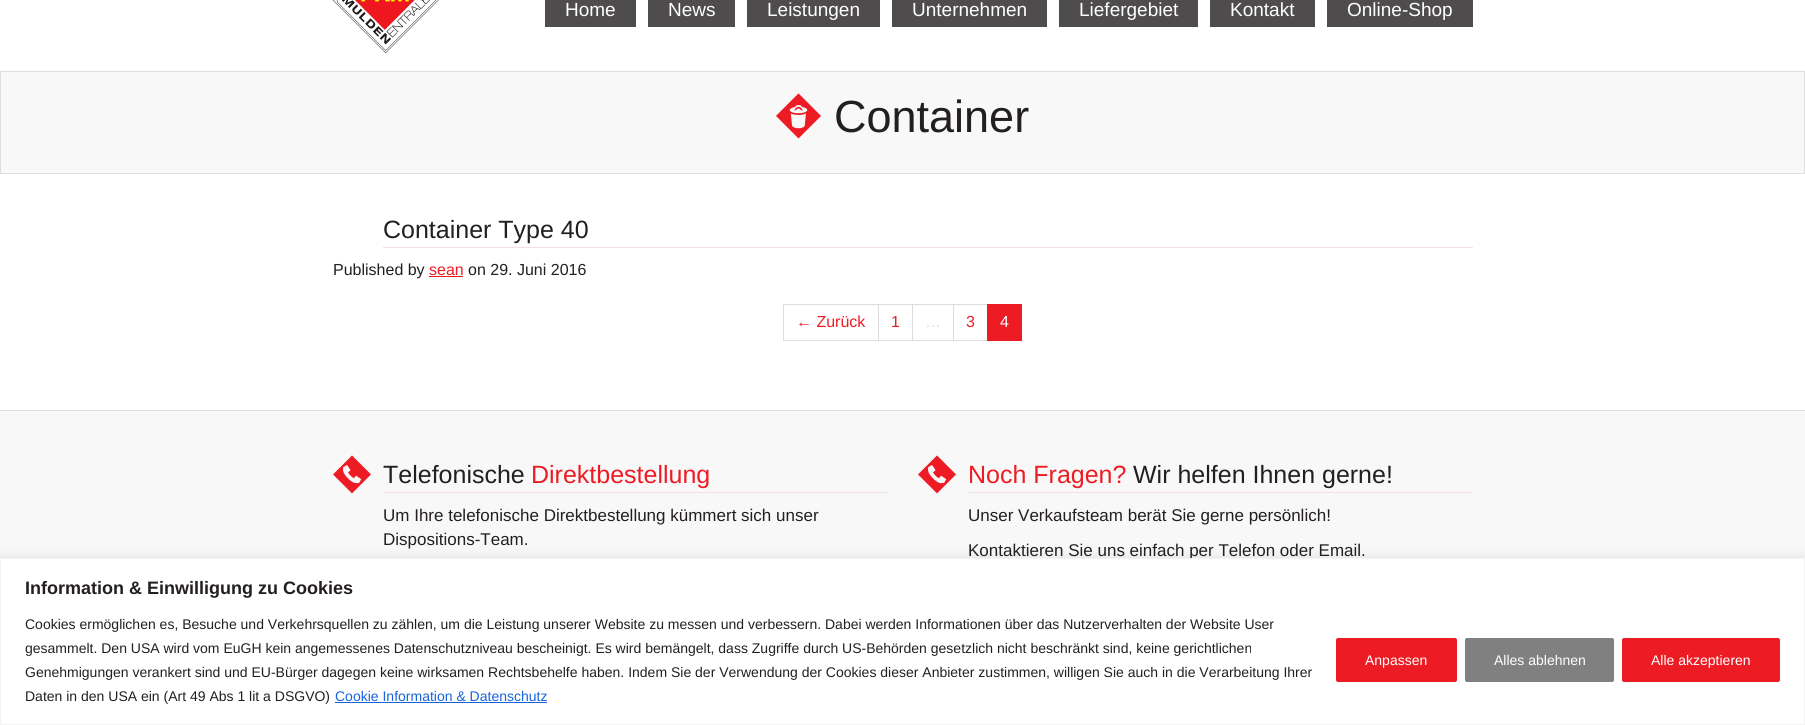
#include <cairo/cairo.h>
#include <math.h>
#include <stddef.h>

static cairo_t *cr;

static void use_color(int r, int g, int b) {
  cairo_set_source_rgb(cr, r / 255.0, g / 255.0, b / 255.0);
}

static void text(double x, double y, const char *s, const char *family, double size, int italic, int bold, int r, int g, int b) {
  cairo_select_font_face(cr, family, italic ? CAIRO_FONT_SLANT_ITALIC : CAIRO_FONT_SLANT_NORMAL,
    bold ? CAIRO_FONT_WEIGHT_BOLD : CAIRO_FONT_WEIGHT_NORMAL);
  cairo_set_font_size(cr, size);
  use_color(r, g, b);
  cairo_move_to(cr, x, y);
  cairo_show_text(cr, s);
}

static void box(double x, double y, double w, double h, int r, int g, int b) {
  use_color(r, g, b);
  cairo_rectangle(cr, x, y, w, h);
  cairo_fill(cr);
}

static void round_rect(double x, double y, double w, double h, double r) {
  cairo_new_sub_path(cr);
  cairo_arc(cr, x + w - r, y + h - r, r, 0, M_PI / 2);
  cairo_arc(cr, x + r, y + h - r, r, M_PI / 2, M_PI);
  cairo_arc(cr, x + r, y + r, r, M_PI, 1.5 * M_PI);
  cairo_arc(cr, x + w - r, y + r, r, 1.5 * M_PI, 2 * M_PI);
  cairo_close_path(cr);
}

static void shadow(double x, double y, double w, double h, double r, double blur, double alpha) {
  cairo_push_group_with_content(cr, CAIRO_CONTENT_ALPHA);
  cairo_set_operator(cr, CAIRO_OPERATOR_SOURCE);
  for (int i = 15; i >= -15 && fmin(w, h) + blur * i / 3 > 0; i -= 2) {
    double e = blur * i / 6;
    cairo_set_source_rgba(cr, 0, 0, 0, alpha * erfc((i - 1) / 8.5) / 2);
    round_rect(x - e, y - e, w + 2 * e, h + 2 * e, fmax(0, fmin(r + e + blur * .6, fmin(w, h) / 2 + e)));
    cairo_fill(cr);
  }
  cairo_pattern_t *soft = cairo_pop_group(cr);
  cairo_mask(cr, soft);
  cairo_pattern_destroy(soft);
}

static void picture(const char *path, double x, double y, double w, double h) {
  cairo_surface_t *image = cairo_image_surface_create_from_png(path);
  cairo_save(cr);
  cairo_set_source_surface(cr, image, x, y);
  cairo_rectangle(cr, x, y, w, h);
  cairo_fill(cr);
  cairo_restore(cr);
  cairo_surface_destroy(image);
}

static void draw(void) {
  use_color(255, 255, 255);
  cairo_paint(cr);
  picture("img_01.png", 333, 0, 106, 53);
  box(545, 0, 91, 27, 79, 76, 77);
  box(648, 0, 87, 27, 79, 76, 77);
  box(747, 0, 133, 27, 79, 76, 77);
  box(892, 0, 155, 27, 79, 76, 77);
  box(1059, 0, 139, 27, 79, 76, 77);
  box(1210, 0, 105, 27, 79, 76, 77);
  box(1327, 0, 146, 27, 79, 76, 77);
  use_color(248, 248, 248);
  cairo_rectangle(cr, 0.5, 71.5, 1804, 102);
  cairo_fill_preserve(cr);
  use_color(222, 222, 222);
  cairo_set_line_width(cr, 1);
  cairo_stroke(cr);
  picture("img_02.png", 776, 93, 45, 46);
  box(383, 247, 1090, 1, 246, 223, 224);
  box(429, 276, 34, 1, 237, 28, 36);
  cairo_rectangle(cr, 783.5, 304.5, 95, 36);
  use_color(221, 221, 221);
  cairo_stroke(cr);
  cairo_rectangle(cr, 878.5, 304.5, 34, 36);
  cairo_stroke(cr);
  cairo_rectangle(cr, 912.5, 304.5, 41, 36);
  cairo_stroke(cr);
  cairo_rectangle(cr, 953.5, 304.5, 34, 36);
  cairo_stroke(cr);
  box(987, 304, 35, 37, 237, 28, 36);
  box(0, 411, 1805, 147, 248, 248, 248);
  box(0, 410, 1805, 1, 222, 222, 222);
  box(383, 492, 505, 1, 246, 223, 224);
  picture("img_03.png", 333, 455, 38, 39);
  box(968, 492, 505, 1, 246, 223, 224);
  picture("img_03.png", 918, 455, 38, 39);
  use_color(172, 171, 171);
  shadow(0, 557, 1805, 167, 0, 5, 0.3);
  text(565, 16, "Home", "Liberation Sans", 19, 0, 0, 255, 255, 255);
  text(668, 16, "News", "Liberation Sans", 19, 0, 0, 255, 255, 255);
  text(767, 16, "Leistungen", "Liberation Sans", 19, 0, 0, 255, 255, 255);
  text(912, 16, "Unternehmen", "Liberation Sans", 19, 0, 0, 255, 255, 255);
  text(1079, 16, "Liefergebiet", "Liberation Sans", 19, 0, 0, 255, 255, 255);
  text(1230, 16, "Kontakt", "Liberation Sans", 19, 0, 0, 255, 255, 255);
  text(1347, 16, "Online-Shop", "Liberation Sans", 19, 0, 0, 255, 255, 255);
  text(834, 132, "Container", "Liberation Sans", 45, 0, 0, 35, 31, 32);
  text(383, 238, "Container Type 40", "Liberation Sans", 25, 0, 0, 35, 31, 32);
  text(333, 275, "Published by", "Liberation Sans", 16, 0, 0, 35, 31, 32);
  text(429, 275, "sean", "Liberation Sans", 16, 0, 0, 237, 28, 36);
  text(468, 275, "on 29. Juni 2016", "Liberation Sans", 16, 0, 0, 35, 31, 32);
  text(796, 327, "← Zurück", "Liberation Sans", 16, 0, 0, 237, 28, 36);
  text(891, 327, "1", "Liberation Sans", 16, 0, 0, 237, 28, 36);
  text(925, 327, "…", "Liberation Sans", 16, 0, 0, 222, 222, 222);
  text(966, 327, "3", "Liberation Sans", 16, 0, 0, 237, 28, 36);
  text(1000, 327, "4", "Liberation Sans", 16, 0, 0, 255, 255, 255);
  text(383, 483, "Telefonische", "Liberation Sans", 25, 0, 0, 35, 31, 32);
  text(531, 483, "Direktbestellung", "Liberation Sans", 25, 0, 0, 237, 28, 36);
  text(383, 521, "Um Ihre telefonische Direktbestellung kümmert sich unser", "Liberation Sans", 17, 0, 0, 35, 31, 32);
  text(383, 545, "Dispositions-Team.", "Liberation Sans", 17, 0, 0, 35, 31, 32);
  text(968, 483, "Noch Fragen?", "Liberation Sans", 25, 0, 0, 237, 28, 36);
  text(1133, 483, "Wir helfen Ihnen gerne!", "Liberation Sans", 25, 0, 0, 35, 31, 32);
  text(968, 521, "Unser Verkaufsteam berät Sie gerne persönlich!", "Liberation Sans", 17, 0, 0, 35, 31, 32);
  text(968, 556, "Kontaktieren Sie uns einfach per Telefon oder Email.", "Liberation Sans", 17, 0, 0, 35, 31, 32);
  use_color(255, 255, 255);
  cairo_rectangle(cr, 0.5, 558.5, 1804, 166);
  cairo_fill_preserve(cr);
  use_color(244, 244, 244);
  cairo_stroke(cr);
  text(25, 594, "Information & Einwilligung zu Cookies", "Liberation Sans", 18, 0, 1, 35, 31, 32);
  text(25, 629, "Cookies ermöglichen es, Besuche und Verkehrsquellen zu zählen, um die Leistung unserer Website zu messen und verbessern. Dabei werden Informationen über das Nutzerverhalten der Website User", "Liberation Sans", 14, 0, 0, 35, 31, 32);
  text(25, 653, "gesammelt. Den USA wird vom EuGH kein angemessenes Datenschutzniveau bescheinigt. Es wird bemängelt, dass Zugriffe durch US-Behörden gesetzlich nicht beschränkt sind, keine gerichtlichen", "Liberation Sans", 14, 0, 0, 35, 31, 32);
  text(25, 677, "Genehmigungen verankert sind und EU-Bürger dagegen keine wirksamen Rechtsbehelfe haben. Indem Sie der Verwendung der Cookies dieser Anbieter zustimmen, willigen Sie auch in die Verarbeitung Ihrer", "Liberation Sans", 14, 0, 0, 35, 31, 32);
  text(25, 701, "Daten in den USA ein (Art 49 Abs 1 lit a DSGVO)", "Liberation Sans", 14, 0, 0, 35, 31, 32);
  text(335, 701, "Cookie Information & Datenschutz", "Liberation Sans", 14, 0, 0, 24, 99, 220);
  box(335, 702, 212, 1, 24, 99, 220);
  use_color(237, 28, 36);
  round_rect(1337, 639, 119, 42, 1);
  cairo_fill_preserve(cr);
  cairo_set_line_width(cr, 2);
  cairo_stroke(cr);
  text(1365, 665, "Anpassen", "Liberation Sans", 14, 0, 0, 255, 255, 255);
  use_color(128, 128, 128);
  round_rect(1466, 639, 147, 42, 1);
  cairo_fill_preserve(cr);
  cairo_stroke(cr);
  text(1494, 665, "Alles ablehnen", "Liberation Sans", 14, 0, 0, 255, 255, 255);
  use_color(237, 28, 36);
  round_rect(1623, 639, 156, 42, 1);
  cairo_fill_preserve(cr);
  cairo_stroke(cr);
  text(1651, 665, "Alle akzeptieren", "Liberation Sans", 14, 0, 0, 255, 255, 255);
}

int main(void) {
  cairo_surface_t *surface = cairo_image_surface_create(CAIRO_FORMAT_RGB24, 1805, 725);
  cr = cairo_create(surface);
  cairo_font_options_t *options = cairo_font_options_create();
  cairo_font_options_set_hint_metrics(options, CAIRO_HINT_METRICS_OFF);
  cairo_font_options_set_hint_style(options, CAIRO_HINT_STYLE_NONE);
  cairo_set_font_options(cr, options);
  cairo_set_miter_limit(cr, 4);
  draw();
  cairo_surface_write_to_png(surface, "out.png");
  cairo_font_options_destroy(options);
  cairo_destroy(cr);
  cairo_surface_destroy(surface);
  return 0;
}
